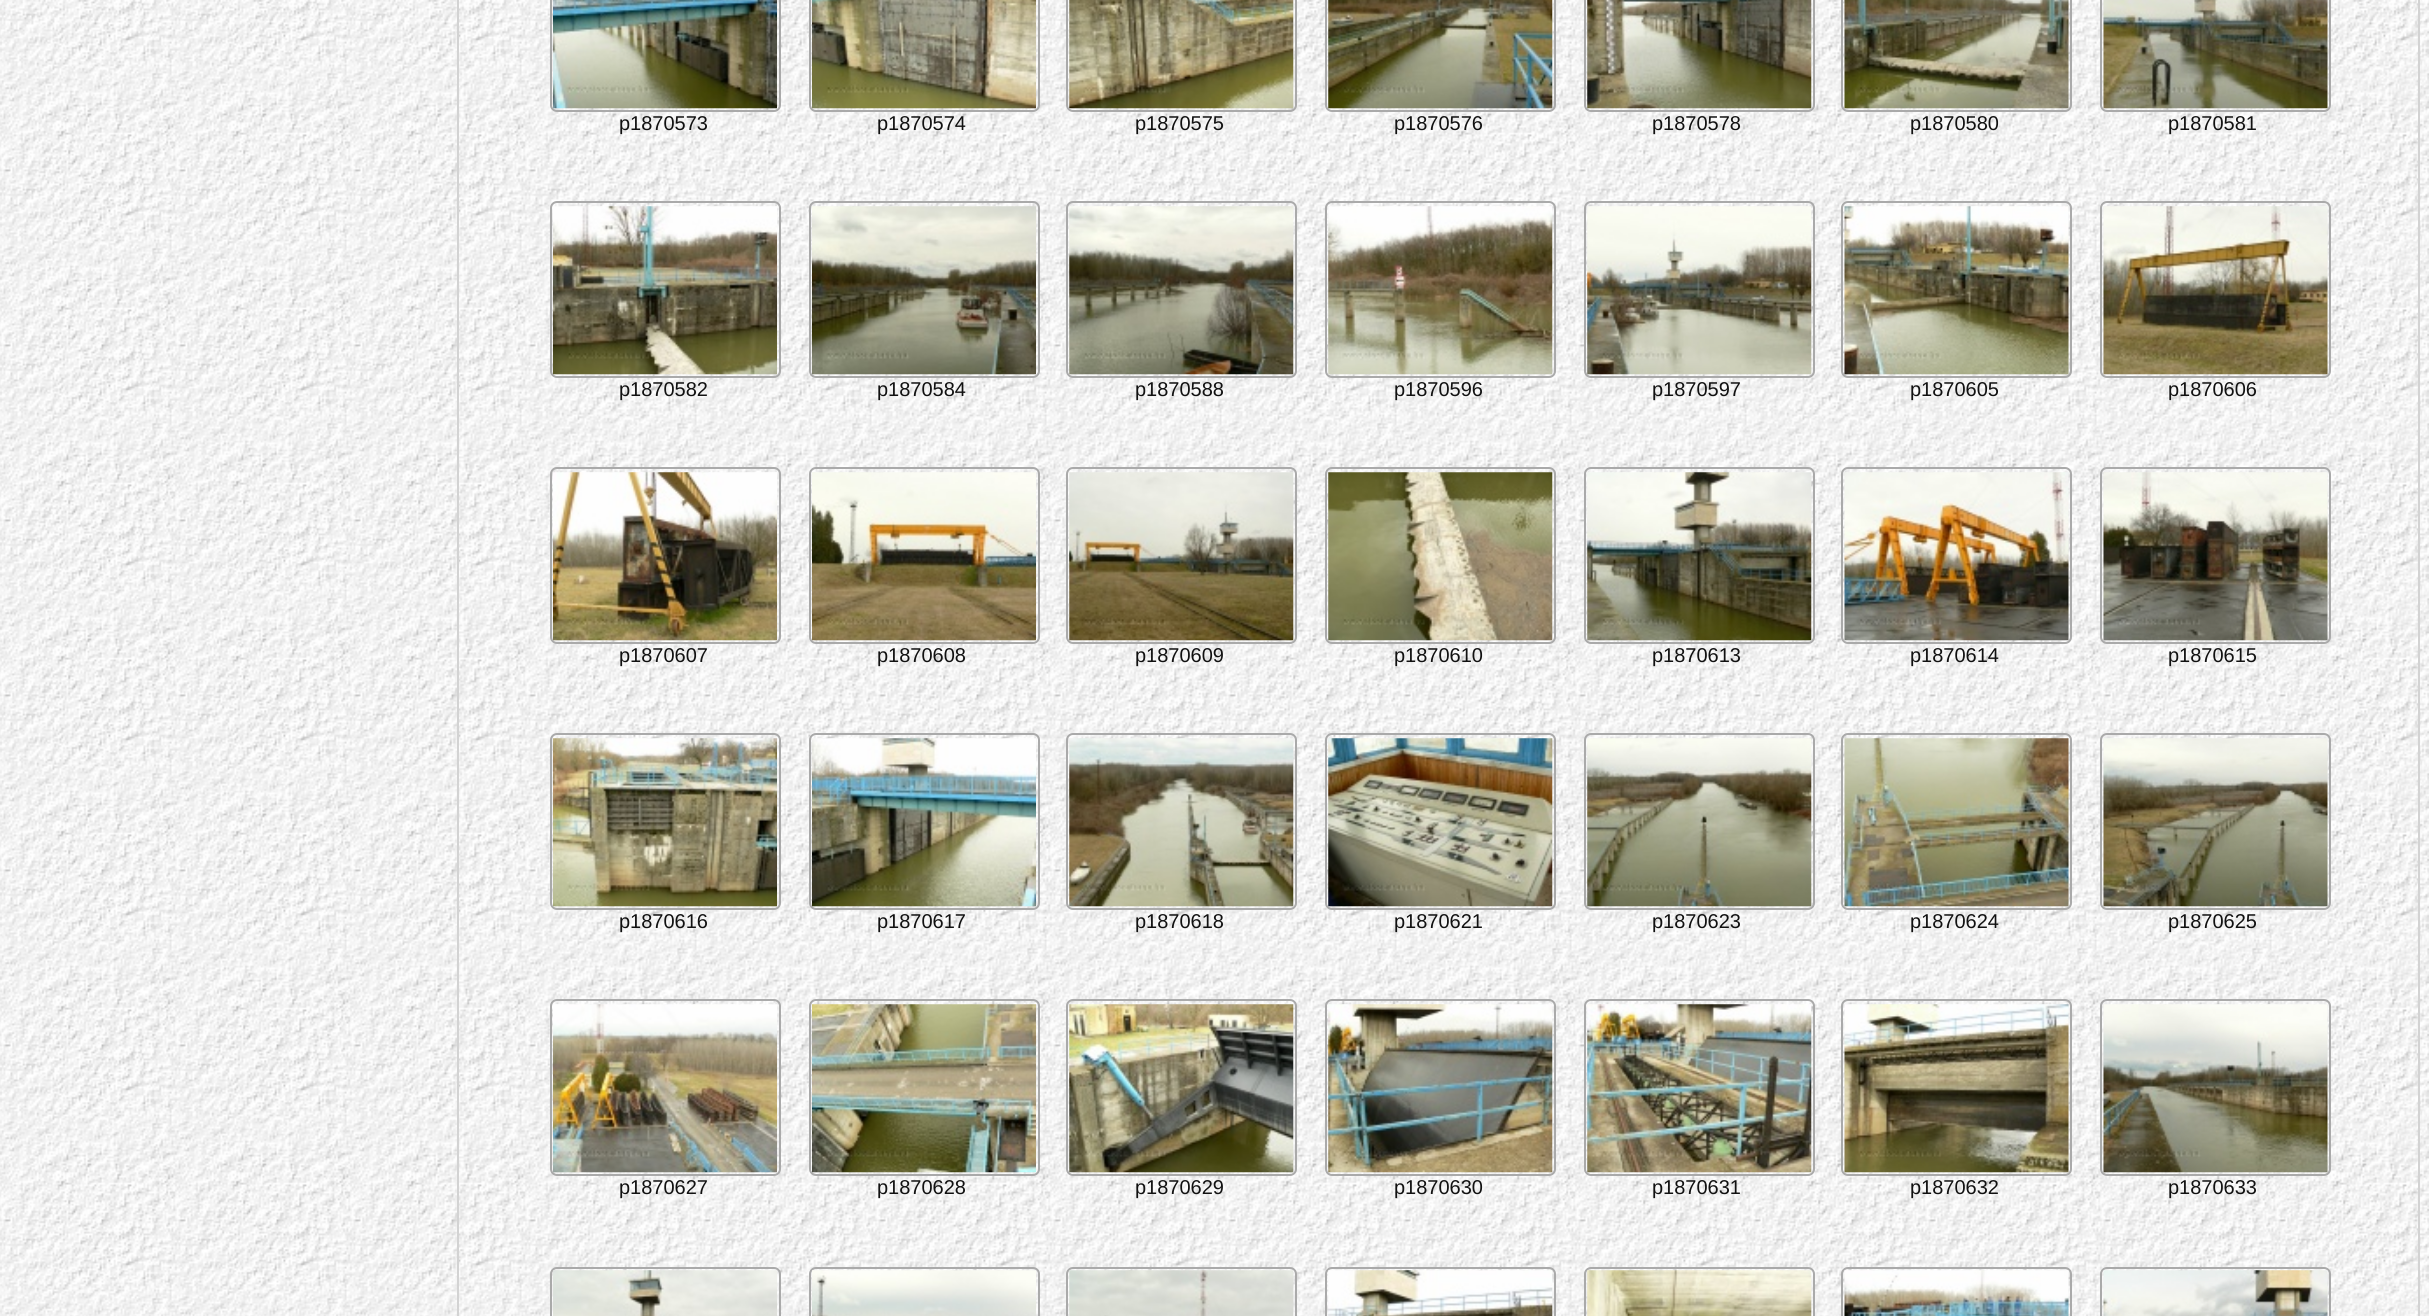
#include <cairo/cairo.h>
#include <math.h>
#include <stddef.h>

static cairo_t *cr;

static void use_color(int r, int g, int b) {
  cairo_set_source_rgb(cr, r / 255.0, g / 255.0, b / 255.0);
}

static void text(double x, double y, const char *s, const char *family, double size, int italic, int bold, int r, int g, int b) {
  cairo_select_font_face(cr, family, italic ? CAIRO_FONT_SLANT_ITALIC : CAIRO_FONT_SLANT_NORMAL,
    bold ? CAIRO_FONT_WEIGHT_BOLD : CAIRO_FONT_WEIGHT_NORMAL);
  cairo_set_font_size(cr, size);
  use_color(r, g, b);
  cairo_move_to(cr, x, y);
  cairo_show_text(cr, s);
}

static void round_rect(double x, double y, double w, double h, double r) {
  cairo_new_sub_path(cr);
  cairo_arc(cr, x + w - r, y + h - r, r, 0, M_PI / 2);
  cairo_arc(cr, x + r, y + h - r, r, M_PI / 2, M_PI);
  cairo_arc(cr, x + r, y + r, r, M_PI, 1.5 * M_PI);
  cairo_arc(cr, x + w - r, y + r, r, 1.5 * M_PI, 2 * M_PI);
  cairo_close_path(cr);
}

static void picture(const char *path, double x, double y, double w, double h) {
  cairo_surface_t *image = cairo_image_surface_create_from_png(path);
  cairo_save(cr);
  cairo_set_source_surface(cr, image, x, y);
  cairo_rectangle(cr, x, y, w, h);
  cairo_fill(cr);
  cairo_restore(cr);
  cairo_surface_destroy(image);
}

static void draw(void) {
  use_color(255, 255, 255);
  cairo_paint(cr);
  picture("img_01.png", 0, 0, 2429, 1316);
  cairo_rectangle(cr, 458, -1, 1961, 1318);
  use_color(211, 211, 211);
  cairo_stroke(cr);
  round_rect(551, -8, 229, 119, 6);
  use_color(170, 170, 170);
  cairo_stroke(cr);
  picture("img_02.png", 553, 0, 224, 109);
  round_rect(810, -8, 229, 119, 6);
  cairo_stroke(cr);
  picture("img_03.png", 812, 0, 224, 109);
  round_rect(1067, -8, 229, 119, 6);
  cairo_stroke(cr);
  picture("img_04.png", 1069, 0, 225, 109);
  round_rect(1326, -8, 229, 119, 6);
  cairo_stroke(cr);
  picture("img_05.png", 1328, 0, 225, 109);
  round_rect(1585, -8, 229, 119, 6);
  cairo_stroke(cr);
  picture("img_06.png", 1587, 0, 225, 109);
  round_rect(1842, -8, 229, 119, 6);
  cairo_stroke(cr);
  picture("img_07.png", 1844, 0, 225, 109);
  round_rect(2101, -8, 229, 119, 6);
  cairo_stroke(cr);
  picture("img_08.png", 2103, 0, 225, 109);
  round_rect(551, 202, 229, 175, 6);
  cairo_stroke(cr);
  picture("img_09.png", 553, 206, 224, 169);
  round_rect(810, 202, 229, 175, 6);
  cairo_stroke(cr);
  picture("img_10.png", 812, 206, 224, 169);
  round_rect(1067, 202, 229, 175, 6);
  cairo_stroke(cr);
  picture("img_11.png", 1069, 206, 225, 169);
  round_rect(1326, 202, 229, 175, 6);
  cairo_stroke(cr);
  picture("img_12.png", 1328, 206, 225, 169);
  round_rect(1585, 202, 229, 175, 6);
  cairo_stroke(cr);
  picture("img_13.png", 1587, 206, 225, 169);
  round_rect(1842, 202, 229, 175, 6);
  cairo_stroke(cr);
  picture("img_14.png", 1844, 206, 225, 169);
  round_rect(2101, 202, 229, 175, 6);
  cairo_stroke(cr);
  picture("img_15.png", 2103, 206, 225, 169);
  round_rect(551, 468, 229, 175, 6);
  cairo_stroke(cr);
  picture("img_16.png", 553, 472, 224, 169);
  round_rect(810, 468, 229, 175, 6);
  cairo_stroke(cr);
  picture("img_17.png", 812, 472, 224, 169);
  round_rect(1067, 468, 229, 175, 6);
  cairo_stroke(cr);
  picture("img_18.png", 1069, 472, 225, 169);
  round_rect(1326, 468, 229, 175, 6);
  cairo_stroke(cr);
  picture("img_19.png", 1328, 472, 225, 169);
  round_rect(1585, 468, 229, 175, 6);
  cairo_stroke(cr);
  picture("img_20.png", 1587, 472, 225, 169);
  round_rect(1842, 468, 229, 175, 6);
  cairo_stroke(cr);
  picture("img_21.png", 1844, 472, 225, 169);
  round_rect(2101, 468, 229, 175, 6);
  cairo_stroke(cr);
  picture("img_22.png", 2103, 472, 225, 169);
  round_rect(551, 734, 229, 175, 6);
  cairo_stroke(cr);
  picture("img_23.png", 553, 738, 224, 169);
  round_rect(810, 734, 229, 175, 6);
  cairo_stroke(cr);
  picture("img_24.png", 812, 738, 224, 169);
  round_rect(1067, 734, 229, 175, 6);
  cairo_stroke(cr);
  picture("img_25.png", 1069, 738, 225, 169);
  round_rect(1326, 734, 229, 175, 6);
  cairo_stroke(cr);
  picture("img_26.png", 1328, 738, 225, 169);
  round_rect(1585, 734, 229, 175, 6);
  cairo_stroke(cr);
  picture("img_27.png", 1587, 738, 225, 169);
  round_rect(1842, 734, 229, 175, 6);
  cairo_stroke(cr);
  picture("img_28.png", 1844, 738, 225, 169);
  round_rect(2101, 734, 229, 175, 6);
  cairo_stroke(cr);
  picture("img_29.png", 2103, 738, 225, 169);
  round_rect(551, 1000, 229, 175, 6);
  cairo_stroke(cr);
  picture("img_30.png", 553, 1004, 224, 169);
  round_rect(810, 1000, 229, 175, 6);
  cairo_stroke(cr);
  picture("img_31.png", 812, 1004, 224, 169);
  round_rect(1067, 1000, 229, 175, 6);
  cairo_stroke(cr);
  picture("img_32.png", 1069, 1004, 225, 169);
  round_rect(1326, 1000, 229, 175, 6);
  cairo_stroke(cr);
  picture("img_33.png", 1328, 1004, 225, 169);
  round_rect(1585, 1000, 229, 175, 6);
  cairo_stroke(cr);
  picture("img_34.png", 1587, 1004, 225, 169);
  round_rect(1842, 1000, 229, 175, 6);
  cairo_stroke(cr);
  picture("img_35.png", 1844, 1004, 225, 169);
  round_rect(2101, 1000, 229, 175, 6);
  cairo_stroke(cr);
  picture("img_36.png", 2103, 1004, 225, 169);
  round_rect(551, 1268, 229, 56, 6);
  cairo_stroke(cr);
  picture("img_37.png", 553, 1270, 224, 46);
  round_rect(810, 1268, 229, 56, 6);
  cairo_stroke(cr);
  picture("img_38.png", 812, 1270, 224, 46);
  round_rect(1067, 1268, 229, 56, 6);
  cairo_stroke(cr);
  picture("img_39.png", 1069, 1270, 225, 46);
  round_rect(1326, 1268, 229, 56, 6);
  cairo_stroke(cr);
  picture("img_40.png", 1328, 1270, 225, 46);
  round_rect(1585, 1268, 229, 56, 6);
  cairo_stroke(cr);
  picture("img_41.png", 1587, 1270, 225, 46);
  round_rect(1842, 1268, 229, 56, 6);
  cairo_stroke(cr);
  picture("img_42.png", 1844, 1270, 225, 46);
  round_rect(2101, 1268, 229, 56, 6);
  cairo_stroke(cr);
  picture("img_43.png", 2103, 1270, 225, 46);
  text(619, 130, "p1870573", "Liberation Sans", 20, 0, 0, 17, 17, 17);
  text(877, 130, "p1870574", "Liberation Sans", 20, 0, 0, 17, 17, 17);
  text(1135, 130, "p1870575", "Liberation Sans", 20, 0, 0, 17, 17, 17);
  text(1394, 130, "p1870576", "Liberation Sans", 20, 0, 0, 17, 17, 17);
  text(1652, 130, "p1870578", "Liberation Sans", 20, 0, 0, 17, 17, 17);
  text(1910, 130, "p1870580", "Liberation Sans", 20, 0, 0, 17, 17, 17);
  text(2168, 130, "p1870581", "Liberation Sans", 20, 0, 0, 17, 17, 17);
  text(619, 396, "p1870582", "Liberation Sans", 20, 0, 0, 17, 17, 17);
  text(877, 396, "p1870584", "Liberation Sans", 20, 0, 0, 17, 17, 17);
  text(1135, 396, "p1870588", "Liberation Sans", 20, 0, 0, 17, 17, 17);
  text(1394, 396, "p1870596", "Liberation Sans", 20, 0, 0, 17, 17, 17);
  text(1652, 396, "p1870597", "Liberation Sans", 20, 0, 0, 17, 17, 17);
  text(1910, 396, "p1870605", "Liberation Sans", 20, 0, 0, 17, 17, 17);
  text(2168, 396, "p1870606", "Liberation Sans", 20, 0, 0, 17, 17, 17);
  text(619, 662, "p1870607", "Liberation Sans", 20, 0, 0, 17, 17, 17);
  text(877, 662, "p1870608", "Liberation Sans", 20, 0, 0, 17, 17, 17);
  text(1135, 662, "p1870609", "Liberation Sans", 20, 0, 0, 17, 17, 17);
  text(1394, 662, "p1870610", "Liberation Sans", 20, 0, 0, 17, 17, 17);
  text(1652, 662, "p1870613", "Liberation Sans", 20, 0, 0, 17, 17, 17);
  text(1910, 662, "p1870614", "Liberation Sans", 20, 0, 0, 17, 17, 17);
  text(2168, 662, "p1870615", "Liberation Sans", 20, 0, 0, 17, 17, 17);
  text(619, 928, "p1870616", "Liberation Sans", 20, 0, 0, 17, 17, 17);
  text(877, 928, "p1870617", "Liberation Sans", 20, 0, 0, 17, 17, 17);
  text(1135, 928, "p1870618", "Liberation Sans", 20, 0, 0, 17, 17, 17);
  text(1394, 928, "p1870621", "Liberation Sans", 20, 0, 0, 17, 17, 17);
  text(1652, 928, "p1870623", "Liberation Sans", 20, 0, 0, 17, 17, 17);
  text(1910, 928, "p1870624", "Liberation Sans", 20, 0, 0, 17, 17, 17);
  text(2168, 928, "p1870625", "Liberation Sans", 20, 0, 0, 17, 17, 17);
  text(619, 1194, "p1870627", "Liberation Sans", 20, 0, 0, 17, 17, 17);
  text(877, 1194, "p1870628", "Liberation Sans", 20, 0, 0, 17, 17, 17);
  text(1135, 1194, "p1870629", "Liberation Sans", 20, 0, 0, 17, 17, 17);
  text(1394, 1194, "p1870630", "Liberation Sans", 20, 0, 0, 17, 17, 17);
  text(1652, 1194, "p1870631", "Liberation Sans", 20, 0, 0, 17, 17, 17);
  text(1910, 1194, "p1870632", "Liberation Sans", 20, 0, 0, 17, 17, 17);
  text(2168, 1194, "p1870633", "Liberation Sans", 20, 0, 0, 17, 17, 17);
}

int main(void) {
  cairo_surface_t *surface = cairo_image_surface_create(CAIRO_FORMAT_RGB24, 2429, 1316);
  cr = cairo_create(surface);
  cairo_font_options_t *options = cairo_font_options_create();
  cairo_font_options_set_hint_metrics(options, CAIRO_HINT_METRICS_OFF);
  cairo_font_options_set_hint_style(options, CAIRO_HINT_STYLE_NONE);
  cairo_set_font_options(cr, options);
  cairo_set_miter_limit(cr, 4);
  draw();
  cairo_surface_write_to_png(surface, "out.png");
  cairo_font_options_destroy(options);
  cairo_destroy(cr);
  cairo_surface_destroy(surface);
  return 0;
}
